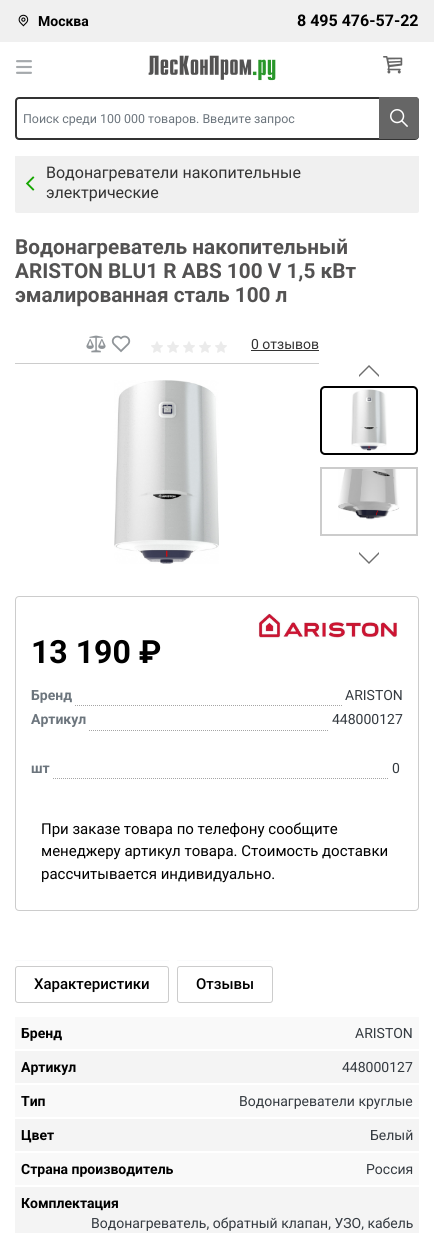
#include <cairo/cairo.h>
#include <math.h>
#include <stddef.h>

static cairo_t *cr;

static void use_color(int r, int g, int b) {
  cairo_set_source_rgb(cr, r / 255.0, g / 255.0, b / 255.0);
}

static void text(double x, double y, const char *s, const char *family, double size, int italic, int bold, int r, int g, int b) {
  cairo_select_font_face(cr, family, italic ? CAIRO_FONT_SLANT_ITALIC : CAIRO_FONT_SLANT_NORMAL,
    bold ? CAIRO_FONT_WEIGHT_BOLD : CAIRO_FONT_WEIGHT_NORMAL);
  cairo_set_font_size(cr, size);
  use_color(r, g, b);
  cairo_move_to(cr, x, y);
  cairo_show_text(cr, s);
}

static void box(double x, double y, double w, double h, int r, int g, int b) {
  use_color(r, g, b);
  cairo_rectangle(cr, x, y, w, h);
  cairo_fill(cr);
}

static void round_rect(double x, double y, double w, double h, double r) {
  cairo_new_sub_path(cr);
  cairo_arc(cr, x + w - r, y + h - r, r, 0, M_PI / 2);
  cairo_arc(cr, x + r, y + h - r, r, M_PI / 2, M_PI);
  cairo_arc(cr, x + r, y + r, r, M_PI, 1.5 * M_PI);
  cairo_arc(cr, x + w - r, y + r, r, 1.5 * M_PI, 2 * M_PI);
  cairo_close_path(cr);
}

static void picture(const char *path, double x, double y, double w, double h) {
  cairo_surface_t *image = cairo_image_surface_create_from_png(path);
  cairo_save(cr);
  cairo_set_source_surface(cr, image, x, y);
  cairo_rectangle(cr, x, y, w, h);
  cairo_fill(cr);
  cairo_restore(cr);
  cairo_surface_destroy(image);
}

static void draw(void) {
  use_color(255, 255, 255);
  cairo_paint(cr);
  box(0, 0, 434, 42, 240, 240, 240);
  picture("img_01.png", 18, 14, 11, 13);
  picture("img_02.png", 16, 60, 16, 14);
  picture("img_03.png", 148, 55, 128, 26);
  picture("img_04.png", 383, 56, 20, 18);
  round_rect(15, 154, 404, 59, 2);
  cairo_fill(cr);
  box(15, 154, 404, 2, 255, 255, 255);
  round_rect(16, 98, 402, 41, 3);
  use_color(51, 51, 51);
  cairo_stroke(cr);
  use_color(102, 102, 102);
  cairo_new_path(cr);
  cairo_move_to(cr, 379, 97);
  cairo_line_to(cr, 416, 97);
  cairo_curve_to(cr, 417.5, 97, 419, 98.5, 419, 100);
  cairo_line_to(cr, 419, 136);
  cairo_curve_to(cr, 419, 137.5, 417.5, 139, 416, 139);
  cairo_line_to(cr, 379, 139);
  cairo_close_path(cr);
  cairo_fill(cr);
  picture("img_05.png", 390, 109, 18, 18);
  picture("img_06.png", 25, 176, 10, 15);
  picture("img_07.png", 86, 335, 20, 18);
  picture("img_08.png", 111, 335, 20, 18);
  picture("img_09.png", 151, 341, 12, 12);
  picture("img_09.png", 167, 341, 12, 12);
  picture("img_09.png", 183, 341, 12, 12);
  picture("img_09.png", 199, 341, 12, 12);
  picture("img_09.png", 215, 341, 12, 12);
  box(251, 350, 68, 1, 51, 51, 51);
  box(15, 363, 304, 1, 204, 204, 204);
  picture("img_10.png", 114, 380, 105, 184);
  use_color(110, 110, 110);
  cairo_new_path(cr);
  cairo_move_to(cr, 359, 377);
  cairo_line_to(cr, 369, 367);
  cairo_line_to(cr, 379, 377);
  cairo_line_to(cr, 379, 375);
  cairo_line_to(cr, 369, 365);
  cairo_line_to(cr, 359, 375);
  cairo_close_path(cr);
  cairo_fill(cr);
  round_rect(321, 387, 96, 67, 4);
  use_color(0, 0, 0);
  cairo_stroke(cr);
  picture("img_11.png", 351, 389, 36, 62);
  cairo_rectangle(cr, 321, 468, 96, 67);
  use_color(204, 204, 204);
  cairo_stroke(cr);
  picture("img_12.png", 338, 469, 62, 51);
  use_color(110, 110, 110);
  cairo_new_path(cr);
  cairo_move_to(cr, 379, 552);
  cairo_line_to(cr, 379, 554);
  cairo_line_to(cr, 369, 564);
  cairo_line_to(cr, 359, 554);
  cairo_line_to(cr, 359, 552);
  cairo_line_to(cr, 369, 562);
  cairo_close_path(cr);
  cairo_fill(cr);
  round_rect(15.5, 596.5, 403, 314, 3.5);
  use_color(204, 204, 204);
  cairo_set_line_width(cr, 1);
  cairo_stroke(cr);
  picture("img_13.png", 258, 613, 140, 26);
  cairo_new_path(cr);
  cairo_move_to(cr, 75, 705.5);
  cairo_line_to(cr, 342, 705.5);
  use_color(165, 165, 165);
  cairo_set_dash(cr, (double[]){1, 1}, 2, 0);
  cairo_stroke(cr);
  cairo_new_path(cr);
  cairo_move_to(cr, 89, 730.5);
  cairo_line_to(cr, 329, 730.5);
  cairo_stroke(cr);
  cairo_new_path(cr);
  cairo_move_to(cr, 53, 778.5);
  cairo_line_to(cr, 389, 778.5);
  cairo_stroke(cr);
  box(15, 960, 154, 1, 250, 251, 252);
  round_rect(15.5, 966.5, 153, 36, 2.5);
  use_color(204, 204, 204);
  cairo_set_dash(cr, NULL, 0, 0);
  cairo_stroke(cr);
  box(177, 960, 96, 1, 250, 251, 252);
  round_rect(177.5, 966.5, 95, 36, 2.5);
  use_color(204, 204, 204);
  cairo_stroke(cr);
  box(15, 1017, 404, 32, 249, 249, 249);
  box(15, 1051, 404, 32, 244, 244, 244);
  box(15, 1085, 404, 32, 249, 249, 249);
  box(15, 1119, 404, 32, 244, 244, 244);
  box(15, 1153, 404, 32, 249, 249, 249);
  box(15, 1187, 404, 46, 244, 244, 244);
  text(38, 26, "Москва", "Roboto", 14, 0, 1, 0, 0, 0);
  text(297, 26, "8 495 476-57-22", "Roboto", 16, 0, 1, 0, 0, 0);
  text(23, 123, "Поиск среди 100 000 товаров. Введите запрос", "Roboto", 12.4, 0, 0, 108, 117, 125);
  text(46, 178, "Водонагреватели накопительные", "Roboto", 16, 0, 0, 51, 51, 51);
  text(46, 198, "электрические", "Roboto", 16, 0, 0, 51, 51, 51);
  text(15, 254, "Водонагреватель накопительный", "Roboto", 20.75, 0, 1, 83, 82, 82);
  text(15, 278, "ARISTON BLU1 R ABS 100 V 1,5 кВт", "Roboto", 20.75, 0, 1, 83, 82, 82);
  text(15, 302, "эмалированная сталь 100 л", "Roboto", 20.75, 0, 1, 83, 82, 82);
  text(251, 349, "0 отзывов", "Roboto", 14, 0, 0, 51, 51, 51);
  text(31, 663, "13 190 ₽", "Roboto", 32, 0, 1, 0, 0, 0);
  text(31, 700, "Бренд", "Roboto", 14, 0, 1, 108, 117, 125);
  text(345, 700, "ARISTON", "Roboto", 14, 0, 0, 52, 58, 64);
  text(31, 724, "Артикул", "Roboto", 14, 0, 1, 108, 117, 125);
  text(332, 724, "448000127", "Roboto", 14, 0, 0, 52, 58, 64);
  text(31, 773, "шт", "Roboto", 14, 0, 1, 108, 117, 125);
  text(392, 773, "0", "Roboto", 14, 0, 0, 52, 58, 64);
  text(41, 834, "При заказе товара по телефону сообщите", "Roboto", 15, 0, 0, 0, 0, 0);
  text(41, 856, "менеджеру артикул товара. Стоимость доставки", "Roboto", 15, 0, 0, 0, 0, 0);
  text(41, 879, "рассчитывается индивидуально.", "Roboto", 15, 0, 0, 0, 0, 0);
  text(34, 989, "Характеристики", "Roboto Medium", 15, 0, 0, 0, 0, 0);
  text(196, 989, "Отзывы", "Roboto Medium", 15, 0, 0, 0, 0, 0);
  text(21, 1038, "Бренд", "Roboto", 14, 0, 1, 0, 0, 0);
  text(355, 1038, "ARISTON", "Roboto", 14, 0, 0, 52, 58, 64);
  text(21, 1072, "Артикул", "Roboto", 14, 0, 1, 0, 0, 0);
  text(342, 1072, "448000127", "Roboto", 14, 0, 0, 52, 58, 64);
  text(21, 1106, "Тип", "Roboto", 14, 0, 1, 0, 0, 0);
  text(239, 1106, "Водонагреватели круглые", "Roboto", 14, 0, 0, 52, 58, 64);
  text(21, 1140, "Цвет", "Roboto", 14, 0, 1, 0, 0, 0);
  text(370, 1140, "Белый", "Roboto", 14, 0, 0, 52, 58, 64);
  text(21, 1174, "Страна производитель", "Roboto", 14, 0, 1, 0, 0, 0);
  text(366, 1174, "Россия", "Roboto", 14, 0, 0, 52, 58, 64);
  text(21, 1208, "Комплектация", "Roboto", 14, 0, 1, 0, 0, 0);
  text(91, 1228, "Водонагреватель, обратный клапан, УЗО, кабель", "Roboto", 14, 0, 0, 52, 58, 64);
}

int main(void) {
  cairo_surface_t *surface = cairo_image_surface_create(CAIRO_FORMAT_RGB24, 434, 1233);
  cr = cairo_create(surface);
  cairo_font_options_t *options = cairo_font_options_create();
  cairo_font_options_set_hint_metrics(options, CAIRO_HINT_METRICS_OFF);
  cairo_font_options_set_hint_style(options, CAIRO_HINT_STYLE_NONE);
  cairo_set_font_options(cr, options);
  cairo_set_miter_limit(cr, 4);
  draw();
  cairo_surface_write_to_png(surface, "out.png");
  cairo_font_options_destroy(options);
  cairo_destroy(cr);
  cairo_surface_destroy(surface);
  return 0;
}
